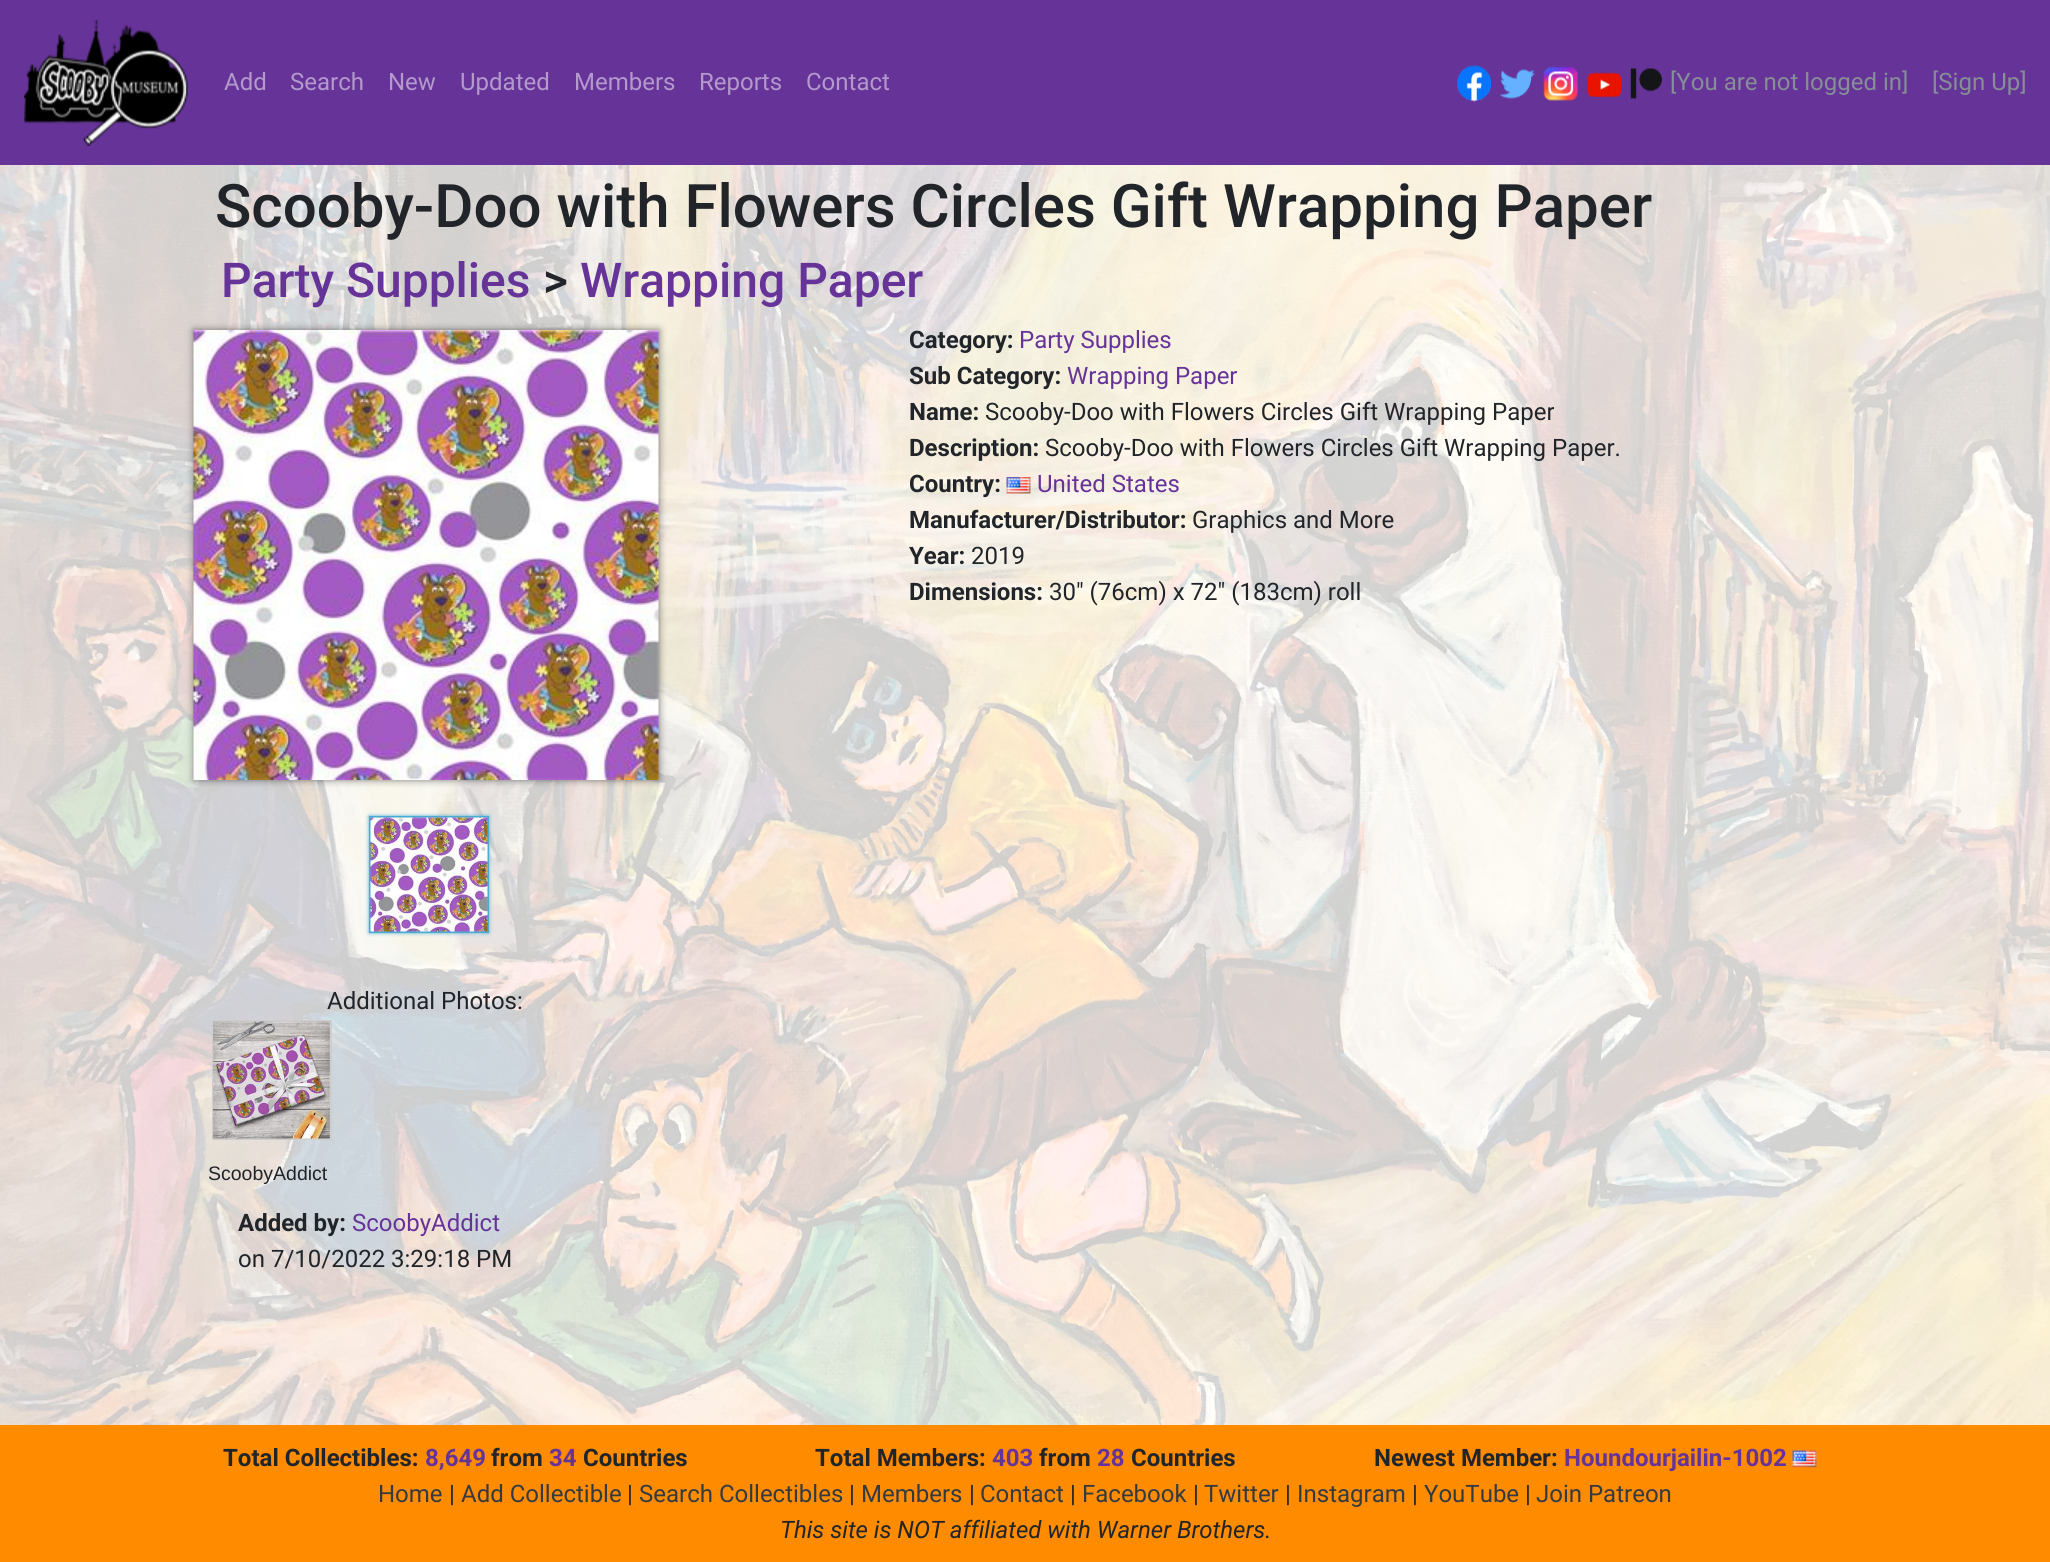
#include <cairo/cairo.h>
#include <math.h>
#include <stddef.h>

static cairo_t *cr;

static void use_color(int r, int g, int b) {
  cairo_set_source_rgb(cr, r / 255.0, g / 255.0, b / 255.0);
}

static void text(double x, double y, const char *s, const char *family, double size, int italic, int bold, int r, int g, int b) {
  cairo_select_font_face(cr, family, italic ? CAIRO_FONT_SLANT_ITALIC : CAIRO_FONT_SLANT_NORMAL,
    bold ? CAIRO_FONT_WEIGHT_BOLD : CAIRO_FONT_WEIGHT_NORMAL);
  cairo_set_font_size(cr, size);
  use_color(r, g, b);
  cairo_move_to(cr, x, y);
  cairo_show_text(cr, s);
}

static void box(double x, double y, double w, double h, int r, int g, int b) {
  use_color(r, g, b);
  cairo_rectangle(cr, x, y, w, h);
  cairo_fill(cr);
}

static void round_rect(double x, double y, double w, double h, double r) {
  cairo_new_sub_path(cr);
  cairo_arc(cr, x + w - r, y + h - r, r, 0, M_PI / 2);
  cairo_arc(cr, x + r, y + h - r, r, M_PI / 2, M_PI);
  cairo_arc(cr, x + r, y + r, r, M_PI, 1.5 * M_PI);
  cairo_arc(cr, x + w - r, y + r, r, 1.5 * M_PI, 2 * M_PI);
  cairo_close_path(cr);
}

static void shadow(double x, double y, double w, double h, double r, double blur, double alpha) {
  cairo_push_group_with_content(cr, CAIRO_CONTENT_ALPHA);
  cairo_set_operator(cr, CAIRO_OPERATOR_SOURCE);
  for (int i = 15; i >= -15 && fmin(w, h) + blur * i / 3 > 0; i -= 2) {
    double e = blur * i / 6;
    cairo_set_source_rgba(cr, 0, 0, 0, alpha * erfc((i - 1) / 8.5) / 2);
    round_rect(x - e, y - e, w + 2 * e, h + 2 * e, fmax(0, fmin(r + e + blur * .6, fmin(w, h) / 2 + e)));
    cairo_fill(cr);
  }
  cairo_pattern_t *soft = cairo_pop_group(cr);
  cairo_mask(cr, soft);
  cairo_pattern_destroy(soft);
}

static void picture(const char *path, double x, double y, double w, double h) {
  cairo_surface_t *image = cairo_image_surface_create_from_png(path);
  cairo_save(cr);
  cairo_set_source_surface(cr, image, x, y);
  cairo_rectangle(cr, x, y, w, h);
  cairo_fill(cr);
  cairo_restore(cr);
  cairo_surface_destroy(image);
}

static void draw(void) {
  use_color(255, 255, 255);
  cairo_paint(cr);
  box(0, 0, 2050, 165, 102, 51, 153);
  picture("img_01.png", 24, 20, 164, 126);
  picture("img_02.png", 1457, 65, 34, 37);
  picture("img_03.png", 1500, 69, 35, 30);
  picture("img_04.png", 1543, 66, 35, 35);
  picture("img_05.png", 1587, 72, 35, 26);
  picture("img_06.png", 1630, 68, 32, 31);
  picture("img_07.png", 0, 165, 2050, 1260);
  picture("img_08.png", 1006, 477, 25, 17);
  use_color(0, 0, 0);
  shadow(194, 330, 465, 450, 0, 4, 0.5);
  picture("img_09.png", 193, 330, 466, 450);
  use_color(74, 169, 210);
  shadow(369, 816, 120, 117, 0, 2, 1);
  cairo_rectangle(cr, 370, 817, 118, 115);
  use_color(74, 170, 210);
  cairo_stroke(cr);
  picture("img_10.png", 370, 817, 118, 115);
  cairo_rectangle(cr, 213, 1021, 118, 118);
  use_color(206, 206, 206);
  cairo_stroke(cr);
  picture("img_11.png", 213, 1021, 117, 118);
  box(0, 1425, 2050, 137, 255, 140, 0);
  picture("img_12.png", 1792, 1450, 25, 18);
  text(224, 90, "Add", "Roboto", 24, 0, 0, 179, 153, 204);
  text(290, 90, "Search", "Roboto", 24, 0, 0, 179, 153, 204);
  text(388, 90, "New", "Roboto", 24, 0, 0, 179, 153, 204);
  text(460, 90, "Updated", "Roboto", 24, 0, 0, 179, 153, 204);
  text(574, 90, "Members", "Roboto", 24, 0, 0, 179, 153, 204);
  text(699, 90, "Reports", "Roboto", 24, 0, 0, 179, 153, 204);
  text(806, 90, "Contact", "Roboto", 24, 0, 0, 179, 153, 204);
  text(1670, 90, "[You are not logged in]", "Roboto", 24, 0, 0, 134, 142, 150);
  text(1932, 90, "[Sign Up]", "Roboto", 24, 0, 0, 134, 142, 150);
  text(215, 227, "Scooby-Doo with Flowers Circles Gift Wrapping Paper", "Roboto Medium", 60, 0, 0, 33, 37, 41);
  text(221, 297, "Party Supplies", "Roboto Medium", 48, 0, 0, 102, 51, 153);
  text(543, 297, ">", "Roboto Medium", 48, 0, 0, 33, 37, 41);
  text(580, 297, "Wrapping Paper", "Roboto Medium", 48, 0, 0, 102, 51, 153);
  text(909, 348, "Category:", "Roboto", 24, 0, 1, 33, 37, 41);
  text(1019, 348, "Party Supplies", "Roboto", 24, 0, 0, 102, 51, 153);
  text(909, 384, "Sub Category:", "Roboto", 24, 0, 1, 33, 37, 41);
  text(1067, 384, "Wrapping Paper", "Roboto", 24, 0, 0, 102, 51, 153);
  text(909, 420, "Name:", "Roboto", 24, 0, 1, 33, 37, 41);
  text(985, 420, "Scooby-Doo with Flowers Circles Gift Wrapping Paper", "Roboto", 24, 0, 0, 33, 37, 41);
  text(909, 456, "Description:", "Roboto", 24, 0, 1, 33, 37, 41);
  text(1045, 456, "Scooby-Doo with Flowers Circles Gift Wrapping Paper.", "Roboto", 24, 0, 0, 33, 37, 41);
  text(909, 492, "Country:", "Roboto", 24, 0, 1, 33, 37, 41);
  text(1037, 492, "United States", "Roboto", 24, 0, 0, 102, 51, 153);
  text(909, 528, "Manufacturer/Distributor:", "Roboto", 24, 0, 1, 33, 37, 41);
  text(1192, 528, "Graphics and More", "Roboto", 24, 0, 0, 33, 37, 41);
  text(909, 564, "Year:", "Roboto", 24, 0, 1, 33, 37, 41);
  text(971, 564, "2019", "Roboto", 24, 0, 0, 33, 37, 41);
  text(909, 600, "Dimensions:", "Roboto", 24, 0, 1, 33, 37, 41);
  text(1049, 600, "30\" (76cm) x 72\" (183cm) roll", "Roboto", 24, 0, 0, 33, 37, 41);
  text(327, 1009, "Additional Photos:", "Roboto", 24, 0, 0, 33, 37, 41);
  text(208, 1180, "ScoobyAddict", "Liberation Sans", 19.5, 0, 0, 33, 37, 41);
  text(238, 1231, "Added by:", "Roboto", 24, 0, 1, 33, 37, 41);
  text(352, 1231, "ScoobyAddict", "Roboto", 24, 0, 0, 102, 51, 153);
  text(238, 1267, "on 7/10/2022 3:29:18 PM", "Roboto", 24, 0, 0, 33, 37, 41);
  text(223, 1466, "Total Collectibles:", "Roboto", 24, 0, 1, 33, 37, 41);
  text(425, 1466, "8,649", "Roboto", 24, 0, 1, 102, 51, 153);
  text(491, 1466, "from", "Roboto", 24, 0, 1, 33, 37, 41);
  text(549, 1466, "34", "Roboto", 24, 0, 1, 102, 51, 153);
  text(583, 1466, "Countries", "Roboto", 24, 0, 1, 33, 37, 41);
  text(815, 1466, "Total Members:", "Roboto", 24, 0, 1, 33, 37, 41);
  text(992, 1466, "403", "Roboto", 24, 0, 1, 102, 51, 153);
  text(1039, 1466, "from", "Roboto", 24, 0, 1, 33, 37, 41);
  text(1097, 1466, "28", "Roboto", 24, 0, 1, 102, 51, 153);
  text(1131, 1466, "Countries", "Roboto", 24, 0, 1, 33, 37, 41);
  text(1374, 1466, "Newest Member:", "Roboto", 24, 0, 1, 33, 37, 41);
  text(1564, 1466, "Houndourjailin-1002", "Roboto", 24, 0, 1, 102, 51, 153);
  text(378, 1502, "Home", "Roboto", 24, 0, 0, 52, 58, 64);
  text(449, 1502, "|", "Roboto", 24, 0, 0, 33, 37, 41);
  text(461, 1502, "Add Collectible", "Roboto", 24, 0, 0, 52, 58, 64);
  text(627, 1502, "|", "Roboto", 24, 0, 0, 33, 37, 41);
  text(639, 1502, "Search Collectibles", "Roboto", 24, 0, 0, 52, 58, 64);
  text(849, 1502, "|", "Roboto", 24, 0, 0, 33, 37, 41);
  text(861, 1502, "Members", "Roboto", 24, 0, 0, 52, 58, 64);
  text(969, 1502, "|", "Roboto", 24, 0, 0, 33, 37, 41);
  text(980, 1502, "Contact", "Roboto", 24, 0, 0, 52, 58, 64);
  text(1070, 1502, "|", "Roboto", 24, 0, 0, 33, 37, 41);
  text(1082, 1502, "Facebook", "Roboto", 24, 0, 0, 52, 58, 64);
  text(1193, 1502, "|", "Roboto", 24, 0, 0, 33, 37, 41);
  text(1204, 1502, "Twitter", "Roboto", 24, 0, 0, 52, 58, 64);
  text(1285, 1502, "|", "Roboto", 24, 0, 0, 33, 37, 41);
  text(1297, 1502, "Instagram", "Roboto", 24, 0, 0, 52, 58, 64);
  text(1412, 1502, "|", "Roboto", 24, 0, 0, 33, 37, 41);
  text(1424, 1502, "YouTube", "Roboto", 24, 0, 0, 52, 58, 64);
  text(1525, 1502, "|", "Roboto", 24, 0, 0, 33, 37, 41);
  text(1536, 1502, "Join Patreon", "Roboto", 24, 0, 0, 52, 58, 64);
  text(780, 1538, "This site is NOT affiliated with Warner Brothers.", "Roboto", 24, 1, 0, 33, 37, 41);
}

int main(void) {
  cairo_surface_t *surface = cairo_image_surface_create(CAIRO_FORMAT_RGB24, 2050, 1562);
  cr = cairo_create(surface);
  cairo_font_options_t *options = cairo_font_options_create();
  cairo_font_options_set_hint_metrics(options, CAIRO_HINT_METRICS_OFF);
  cairo_font_options_set_hint_style(options, CAIRO_HINT_STYLE_NONE);
  cairo_set_font_options(cr, options);
  cairo_set_miter_limit(cr, 4);
  draw();
  cairo_surface_write_to_png(surface, "out.png");
  cairo_font_options_destroy(options);
  cairo_destroy(cr);
  cairo_surface_destroy(surface);
  return 0;
}
